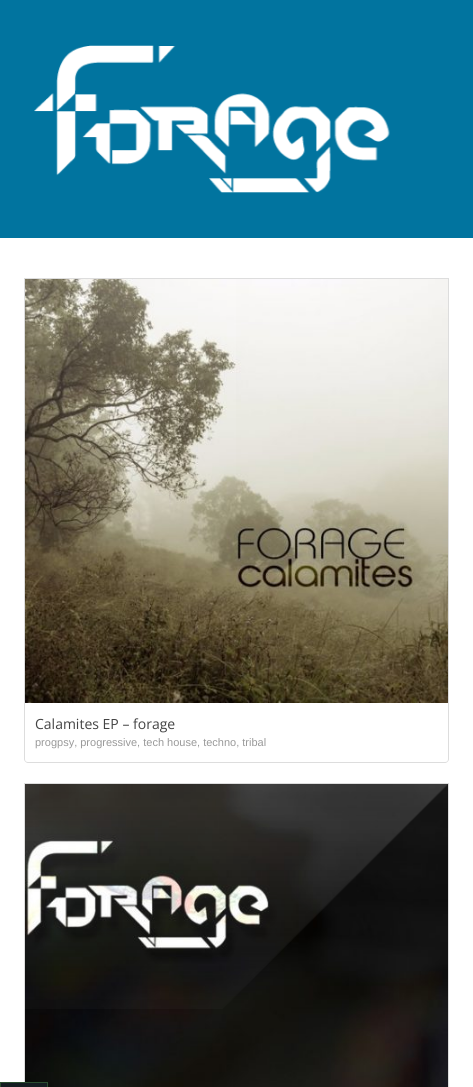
#include <cairo/cairo.h>
#include <math.h>
#include <stddef.h>

static cairo_t *cr;

static void use_color(int r, int g, int b) {
  cairo_set_source_rgb(cr, r / 255.0, g / 255.0, b / 255.0);
}

static void text(double x, double y, const char *s, const char *family, double size, int italic, int bold, int r, int g, int b) {
  cairo_select_font_face(cr, family, italic ? CAIRO_FONT_SLANT_ITALIC : CAIRO_FONT_SLANT_NORMAL,
    bold ? CAIRO_FONT_WEIGHT_BOLD : CAIRO_FONT_WEIGHT_NORMAL);
  cairo_set_font_size(cr, size);
  use_color(r, g, b);
  cairo_move_to(cr, x, y);
  cairo_show_text(cr, s);
}

static void box(double x, double y, double w, double h, int r, int g, int b) {
  use_color(r, g, b);
  cairo_rectangle(cr, x, y, w, h);
  cairo_fill(cr);
}

static void picture(const char *path, double x, double y, double w, double h) {
  cairo_surface_t *image = cairo_image_surface_create_from_png(path);
  cairo_save(cr);
  cairo_set_source_surface(cr, image, x, y);
  cairo_rectangle(cr, x, y, w, h);
  cairo_fill(cr);
  cairo_restore(cr);
  cairo_surface_destroy(image);
}

static void draw(void) {
  use_color(255, 255, 255);
  cairo_paint(cr);
  box(0, 0, 473, 238, 1, 116, 159);
  picture("img_01.png", 34, 45, 356, 148);
  box(24, 278, 425, 1, 221, 221, 221);
  box(448, 278, 1, 425, 221, 221, 221);
  box(24, 278, 1, 425, 221, 221, 221);
  picture("img_02.png", 25, 279, 423, 424);
  picture("img_03.png", 25, 279, 211, 225);
  cairo_set_fill_rule(cr, CAIRO_FILL_RULE_EVEN_ODD);
  cairo_new_path(cr);
  cairo_move_to(cr, 24, 703);
  cairo_line_to(cr, 449, 703);
  cairo_line_to(cr, 449, 759);
  cairo_curve_to(cr, 449, 761, 447, 763, 445, 763);
  cairo_line_to(cr, 28, 763);
  cairo_curve_to(cr, 26, 763, 24, 761, 24, 759);
  cairo_close_path(cr);
  cairo_move_to(cr, 25, 703);
  cairo_line_to(cr, 448, 703);
  cairo_line_to(cr, 448, 759);
  cairo_curve_to(cr, 448, 761, 447, 762, 445, 762);
  cairo_line_to(cr, 28, 762);
  cairo_curve_to(cr, 26, 762, 25, 761, 25, 759);
  cairo_close_path(cr);
  cairo_fill(cr);
  box(24, 783, 425, 1, 221, 221, 221);
  box(448, 783, 1, 304, 221, 221, 221);
  box(24, 783, 1, 304, 221, 221, 221);
  picture("img_04.png", 25, 784, 423, 303);
  picture("img_05.png", 25, 784, 423, 225);
  box(0, 1083, 48, 4, 20, 29, 33);
  box(0, 1082, 48, 1, 43, 77, 48);
  box(47, 1082, 1, 5, 43, 77, 48);
  box(0, 1082, 1, 5, 43, 77, 48);
  text(35, 729, "Calamites EP – forage", "Open Sans", 14, 0, 0, 68, 68, 68);
  text(35, 746, "progpsy, progressive, tech house, techno, tribal", "Liberation Sans", 11, 0, 0, 153, 153, 153);
}

int main(void) {
  cairo_surface_t *surface = cairo_image_surface_create(CAIRO_FORMAT_RGB24, 473, 1087);
  cr = cairo_create(surface);
  cairo_font_options_t *options = cairo_font_options_create();
  cairo_font_options_set_hint_metrics(options, CAIRO_HINT_METRICS_OFF);
  cairo_font_options_set_hint_style(options, CAIRO_HINT_STYLE_NONE);
  cairo_set_font_options(cr, options);
  cairo_set_miter_limit(cr, 4);
  draw();
  cairo_surface_write_to_png(surface, "out.png");
  cairo_font_options_destroy(options);
  cairo_destroy(cr);
  cairo_surface_destroy(surface);
  return 0;
}
